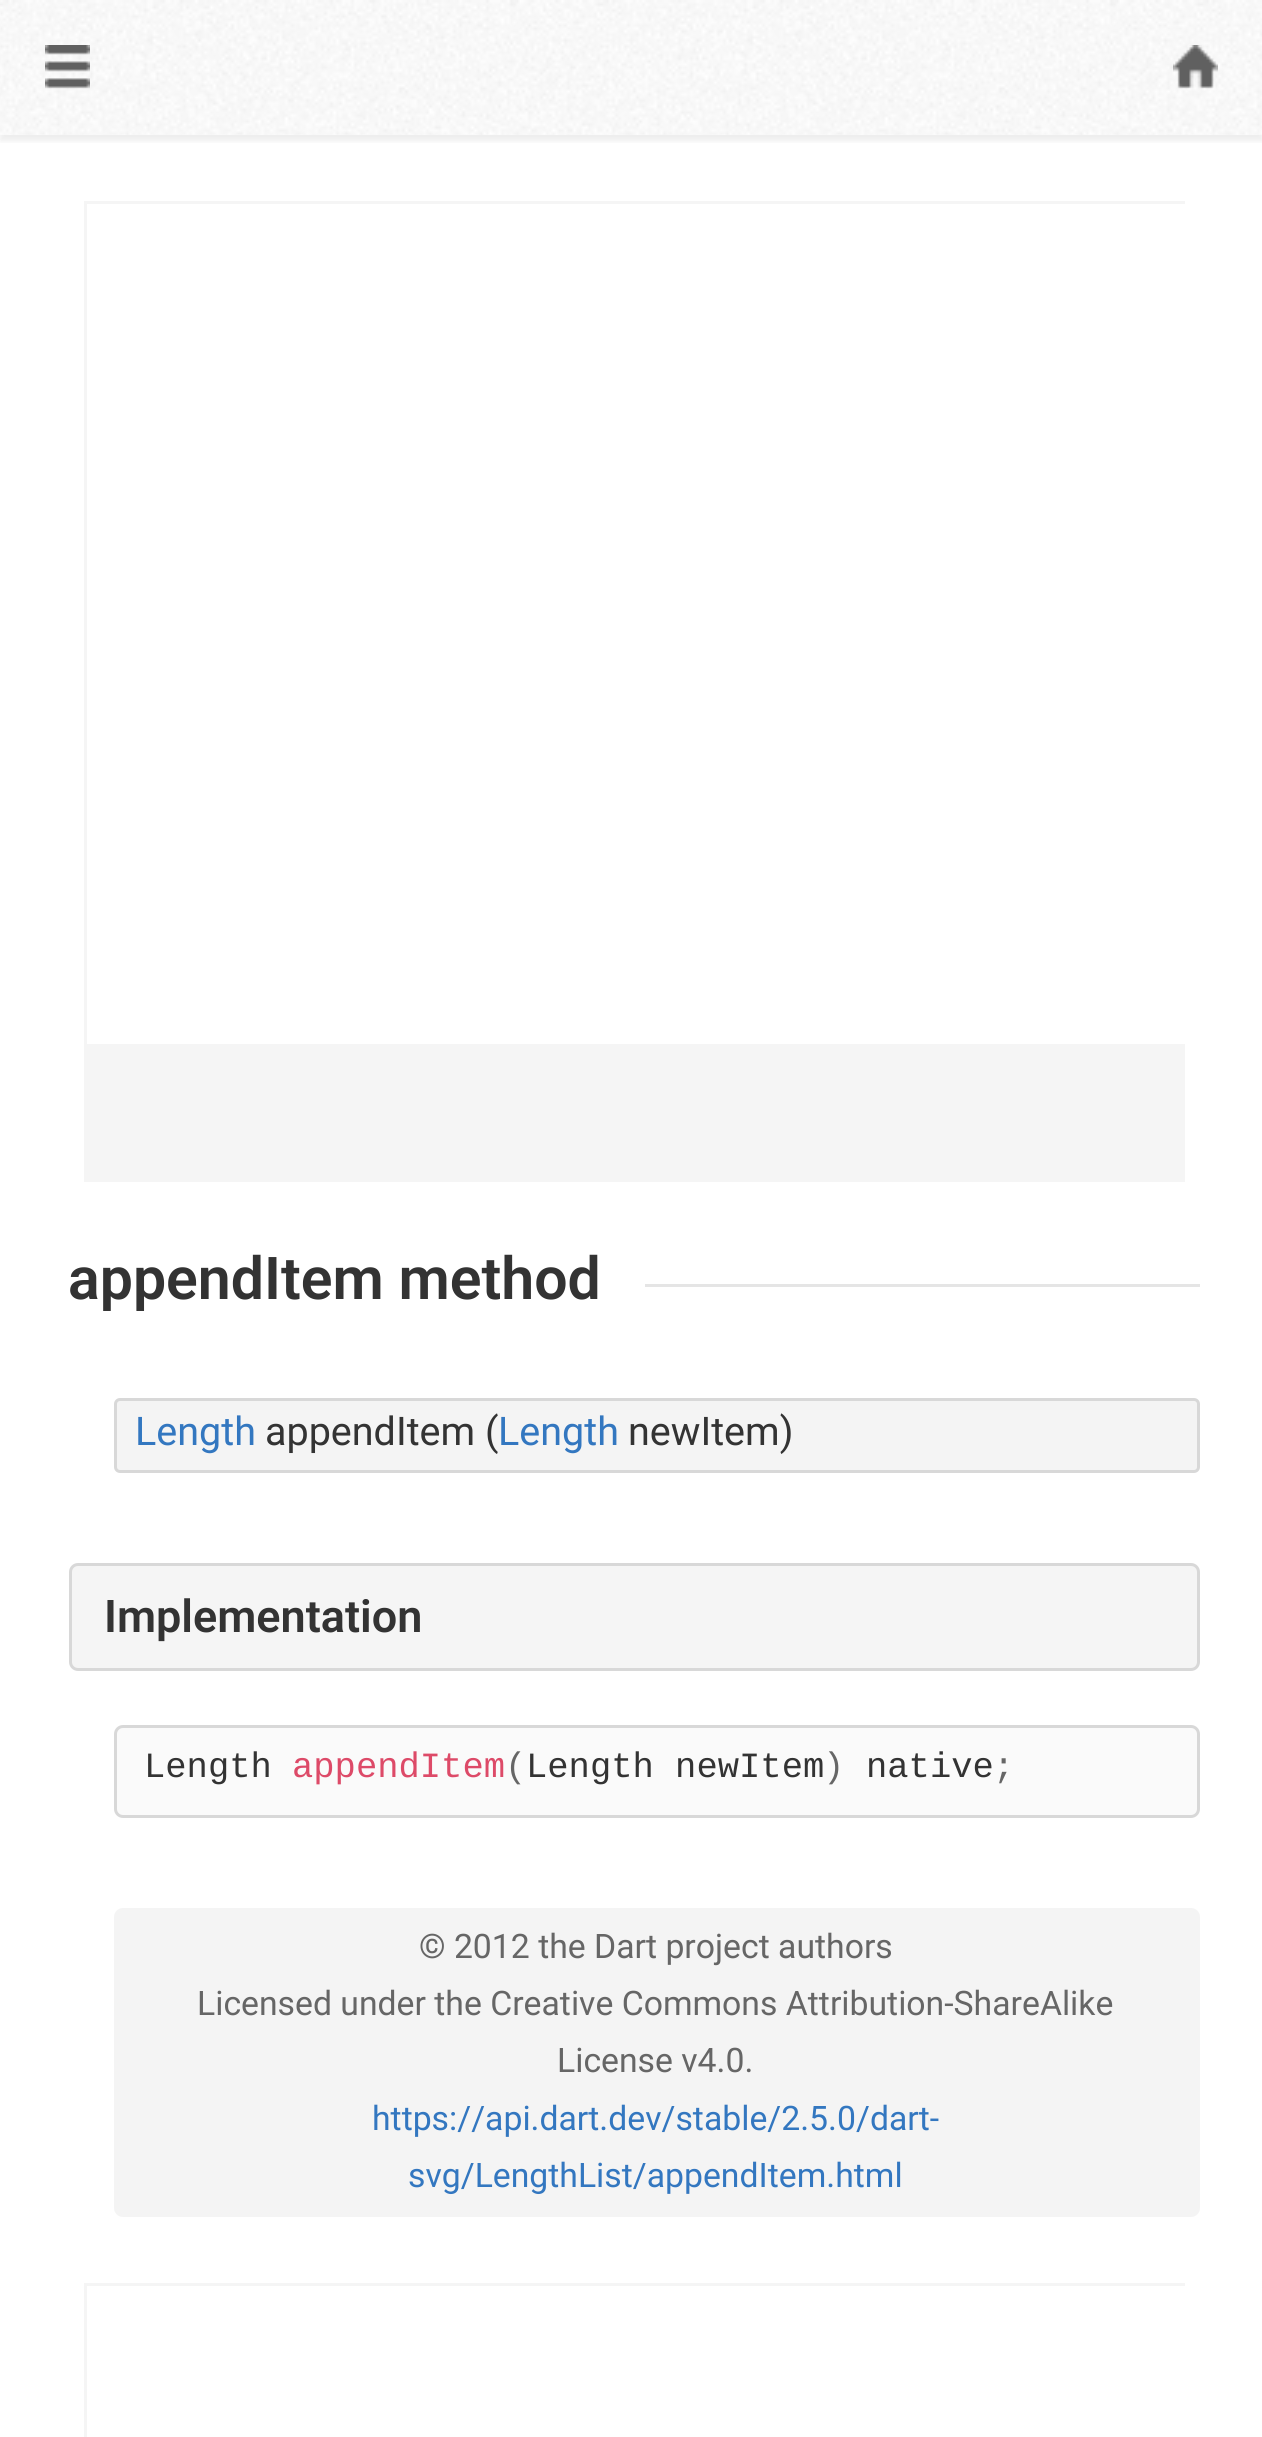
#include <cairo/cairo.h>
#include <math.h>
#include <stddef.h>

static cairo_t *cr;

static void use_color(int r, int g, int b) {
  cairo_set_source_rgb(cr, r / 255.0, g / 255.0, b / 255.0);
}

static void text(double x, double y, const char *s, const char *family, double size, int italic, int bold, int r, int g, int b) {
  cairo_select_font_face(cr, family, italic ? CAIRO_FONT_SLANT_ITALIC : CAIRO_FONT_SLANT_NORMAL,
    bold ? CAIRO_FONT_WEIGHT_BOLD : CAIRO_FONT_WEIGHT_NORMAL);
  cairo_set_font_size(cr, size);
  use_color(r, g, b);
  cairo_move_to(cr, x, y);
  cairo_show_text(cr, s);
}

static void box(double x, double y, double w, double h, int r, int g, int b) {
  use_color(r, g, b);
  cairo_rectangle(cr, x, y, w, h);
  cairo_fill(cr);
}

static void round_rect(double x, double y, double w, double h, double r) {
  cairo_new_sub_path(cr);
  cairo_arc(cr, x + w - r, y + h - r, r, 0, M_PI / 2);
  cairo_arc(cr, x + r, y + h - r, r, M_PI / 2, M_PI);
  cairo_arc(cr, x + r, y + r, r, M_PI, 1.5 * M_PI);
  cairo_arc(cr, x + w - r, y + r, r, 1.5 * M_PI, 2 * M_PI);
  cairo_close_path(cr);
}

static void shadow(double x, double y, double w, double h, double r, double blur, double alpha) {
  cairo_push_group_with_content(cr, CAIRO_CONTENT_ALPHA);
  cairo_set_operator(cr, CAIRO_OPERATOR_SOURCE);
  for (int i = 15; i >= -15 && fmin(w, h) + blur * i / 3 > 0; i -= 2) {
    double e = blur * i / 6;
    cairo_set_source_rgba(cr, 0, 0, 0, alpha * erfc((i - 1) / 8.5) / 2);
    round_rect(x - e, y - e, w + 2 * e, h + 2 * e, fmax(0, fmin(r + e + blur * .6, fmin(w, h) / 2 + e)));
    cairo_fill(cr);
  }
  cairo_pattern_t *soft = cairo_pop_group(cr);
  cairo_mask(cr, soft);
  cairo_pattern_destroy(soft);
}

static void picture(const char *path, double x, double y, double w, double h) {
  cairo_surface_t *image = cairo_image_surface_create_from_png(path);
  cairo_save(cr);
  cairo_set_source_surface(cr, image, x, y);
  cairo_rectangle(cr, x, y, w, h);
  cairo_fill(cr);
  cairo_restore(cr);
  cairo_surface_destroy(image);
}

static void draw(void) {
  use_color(255, 255, 255);
  cairo_paint(cr);
  cairo_save(cr);
  cairo_rectangle(cr, 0, 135, 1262, 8);
  cairo_clip(cr);
  use_color(0, 0, 0);
  shadow(0, 6, 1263, 135, 0, 3, 0.07);
  cairo_restore(cr);
  picture("img_01.png", 0, 0, 1262, 135);
  picture("img_02.png", 45, 45, 45, 44);
  picture("img_03.png", 1173, 45, 45, 44);
  box(84, 201, 1101, 981, 245, 245, 245);
  box(87, 204, 1098, 840, 255, 255, 255);
  box(645, 1284, 555, 3, 229, 229, 229);
  use_color(244, 244, 244);
  round_rect(115.5, 1399.5, 1083, 72, 4.5);
  cairo_fill_preserve(cr);
  use_color(216, 216, 216);
  cairo_set_line_width(cr, 3);
  cairo_stroke(cr);
  use_color(245, 245, 245);
  round_rect(70.5, 1564.5, 1128, 105, 7.5);
  cairo_fill_preserve(cr);
  use_color(216, 216, 216);
  cairo_stroke(cr);
  use_color(250, 250, 250);
  round_rect(115.5, 1726.5, 1083, 90, 7.5);
  cairo_fill_preserve(cr);
  use_color(216, 216, 216);
  cairo_stroke(cr);
  use_color(244, 244, 244);
  round_rect(114, 1908, 1086, 309, 9);
  cairo_fill(cr);
  box(84, 2283, 1101, 154, 245, 245, 245);
  box(87, 2286, 1098, 151, 255, 255, 255);
  text(68, 1299, "appendItem method", "Roboto SemiBold", 59, 0, 0, 51, 51, 51);
  text(135, 1445, "Length", "Roboto", 39.5, 0, 0, 51, 119, 192);
  text(265, 1445, "appendItem (", "Roboto", 39.5, 0, 0, 51, 51, 51);
  text(498, 1445, "Length", "Roboto", 39.5, 0, 0, 51, 119, 192);
  text(628, 1445, "newItem)", "Roboto", 39.5, 0, 0, 51, 51, 51);
  text(104, 1632, "Implementation", "Roboto SemiBold", 45, 0, 0, 51, 51, 51);
  text(144, 1777, "Length", "Liberation Mono", 35.5, 0, 0, 51, 51, 51);
  text(292, 1777, "appendItem", "Liberation Mono", 35.5, 0, 0, 221, 74, 104);
  text(505, 1777, "(", "Liberation Mono", 35.5, 0, 0, 102, 102, 102);
  text(526, 1777, "Length newItem", "Liberation Mono", 35.5, 0, 0, 51, 51, 51);
  text(823, 1777, ")", "Liberation Mono", 35.5, 0, 0, 102, 102, 102);
  text(866, 1777, "native", "Liberation Mono", 35.5, 0, 0, 51, 51, 51);
  text(993, 1777, ";", "Liberation Mono", 35.5, 0, 0, 102, 102, 102);
  text(419, 1958, "© 2012 the Dart project authors", "Roboto", 33.75, 0, 0, 102, 102, 102);
  text(197, 2015, "Licensed under the Creative Commons Attribution-ShareAlike", "Roboto", 33.75, 0, 0, 102, 102, 102);
  text(557, 2072, "License v4.0.", "Roboto", 33.75, 0, 0, 102, 102, 102);
  text(372, 2130, "https://api.dart.dev/stable/2.5.0/dart-", "Roboto", 33.75, 0, 0, 51, 119, 192);
  text(408, 2187, "svg/LengthList/appendItem.html", "Roboto", 33.75, 0, 0, 51, 119, 192);
}

int main(void) {
  cairo_surface_t *surface = cairo_image_surface_create(CAIRO_FORMAT_RGB24, 1262, 2437);
  cr = cairo_create(surface);
  cairo_font_options_t *options = cairo_font_options_create();
  cairo_font_options_set_hint_metrics(options, CAIRO_HINT_METRICS_OFF);
  cairo_font_options_set_hint_style(options, CAIRO_HINT_STYLE_NONE);
  cairo_set_font_options(cr, options);
  cairo_set_miter_limit(cr, 4);
  draw();
  cairo_surface_write_to_png(surface, "out.png");
  cairo_font_options_destroy(options);
  cairo_destroy(cr);
  cairo_surface_destroy(surface);
  return 0;
}
